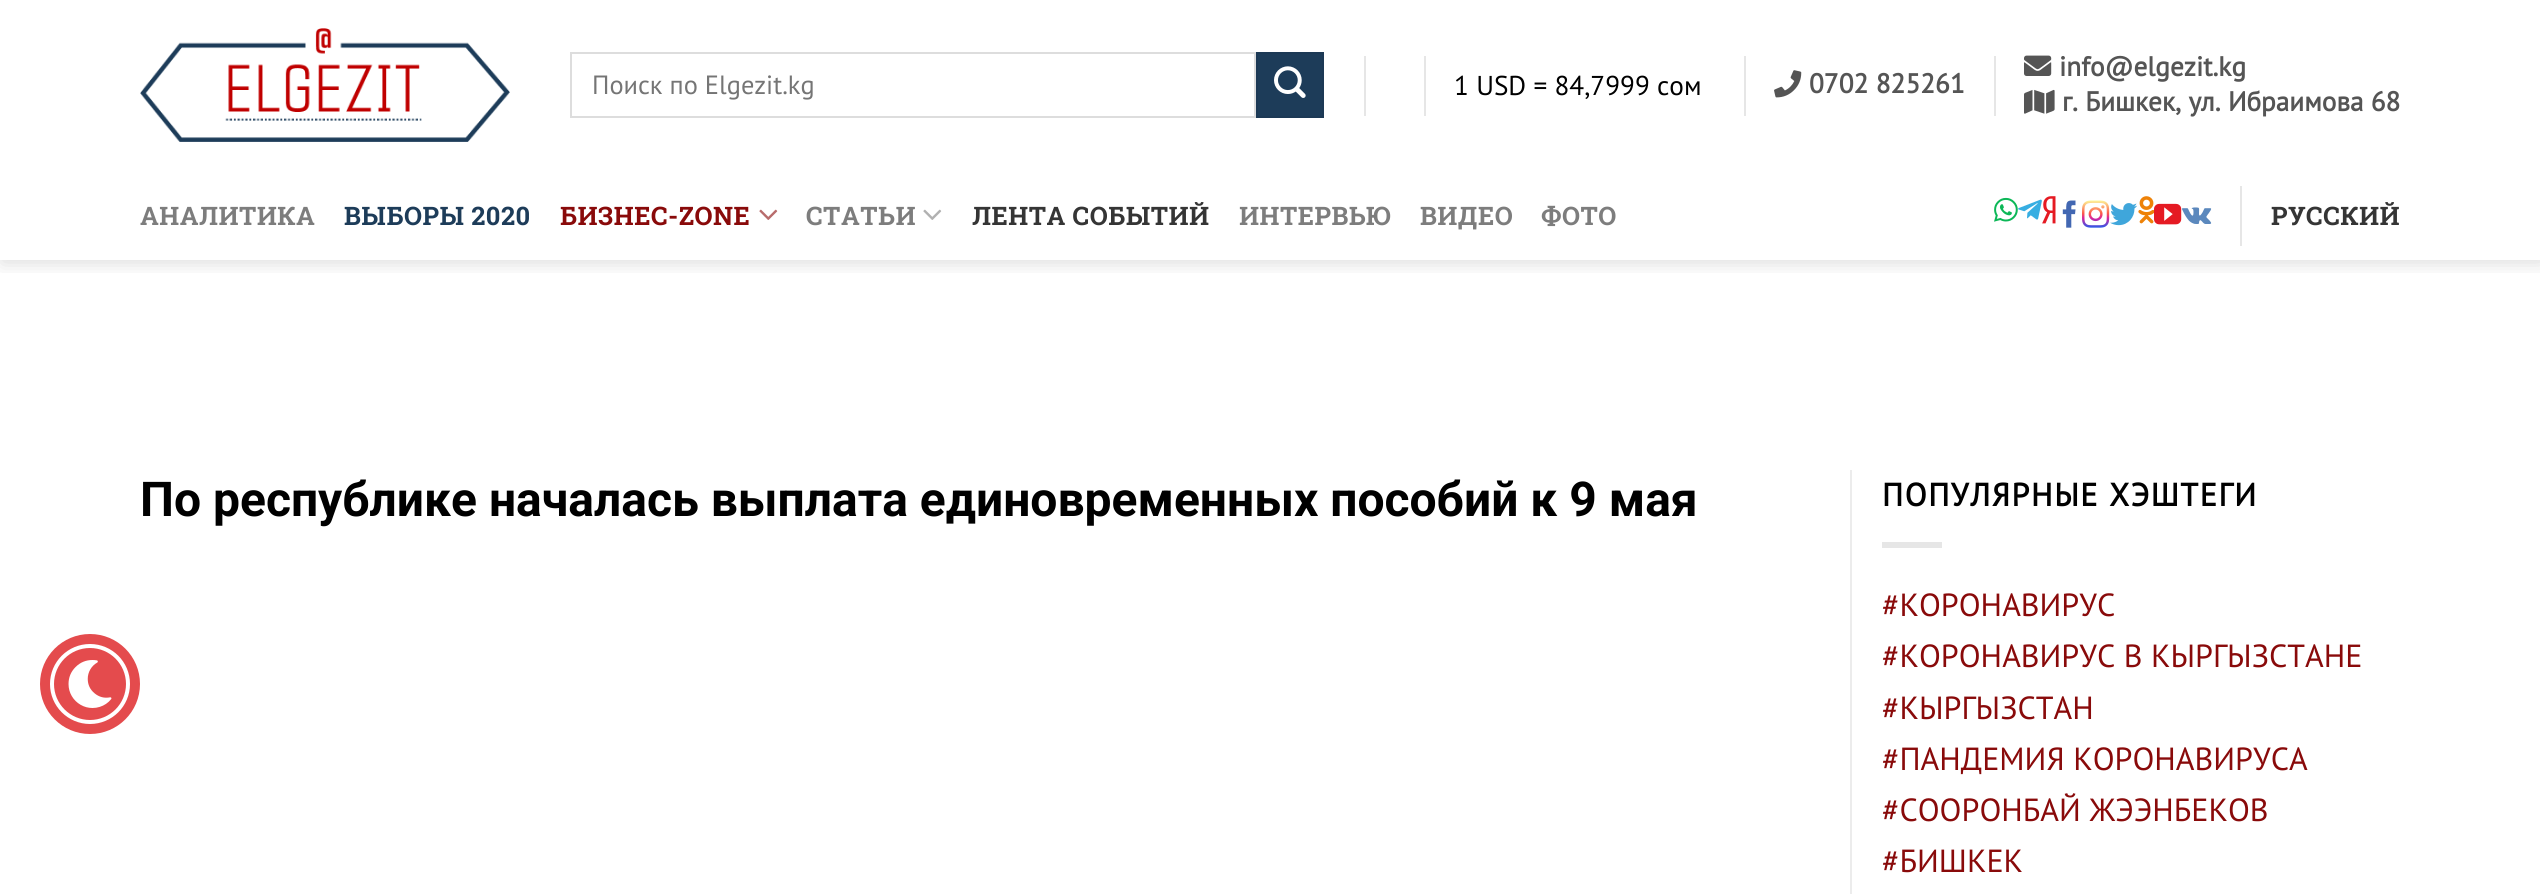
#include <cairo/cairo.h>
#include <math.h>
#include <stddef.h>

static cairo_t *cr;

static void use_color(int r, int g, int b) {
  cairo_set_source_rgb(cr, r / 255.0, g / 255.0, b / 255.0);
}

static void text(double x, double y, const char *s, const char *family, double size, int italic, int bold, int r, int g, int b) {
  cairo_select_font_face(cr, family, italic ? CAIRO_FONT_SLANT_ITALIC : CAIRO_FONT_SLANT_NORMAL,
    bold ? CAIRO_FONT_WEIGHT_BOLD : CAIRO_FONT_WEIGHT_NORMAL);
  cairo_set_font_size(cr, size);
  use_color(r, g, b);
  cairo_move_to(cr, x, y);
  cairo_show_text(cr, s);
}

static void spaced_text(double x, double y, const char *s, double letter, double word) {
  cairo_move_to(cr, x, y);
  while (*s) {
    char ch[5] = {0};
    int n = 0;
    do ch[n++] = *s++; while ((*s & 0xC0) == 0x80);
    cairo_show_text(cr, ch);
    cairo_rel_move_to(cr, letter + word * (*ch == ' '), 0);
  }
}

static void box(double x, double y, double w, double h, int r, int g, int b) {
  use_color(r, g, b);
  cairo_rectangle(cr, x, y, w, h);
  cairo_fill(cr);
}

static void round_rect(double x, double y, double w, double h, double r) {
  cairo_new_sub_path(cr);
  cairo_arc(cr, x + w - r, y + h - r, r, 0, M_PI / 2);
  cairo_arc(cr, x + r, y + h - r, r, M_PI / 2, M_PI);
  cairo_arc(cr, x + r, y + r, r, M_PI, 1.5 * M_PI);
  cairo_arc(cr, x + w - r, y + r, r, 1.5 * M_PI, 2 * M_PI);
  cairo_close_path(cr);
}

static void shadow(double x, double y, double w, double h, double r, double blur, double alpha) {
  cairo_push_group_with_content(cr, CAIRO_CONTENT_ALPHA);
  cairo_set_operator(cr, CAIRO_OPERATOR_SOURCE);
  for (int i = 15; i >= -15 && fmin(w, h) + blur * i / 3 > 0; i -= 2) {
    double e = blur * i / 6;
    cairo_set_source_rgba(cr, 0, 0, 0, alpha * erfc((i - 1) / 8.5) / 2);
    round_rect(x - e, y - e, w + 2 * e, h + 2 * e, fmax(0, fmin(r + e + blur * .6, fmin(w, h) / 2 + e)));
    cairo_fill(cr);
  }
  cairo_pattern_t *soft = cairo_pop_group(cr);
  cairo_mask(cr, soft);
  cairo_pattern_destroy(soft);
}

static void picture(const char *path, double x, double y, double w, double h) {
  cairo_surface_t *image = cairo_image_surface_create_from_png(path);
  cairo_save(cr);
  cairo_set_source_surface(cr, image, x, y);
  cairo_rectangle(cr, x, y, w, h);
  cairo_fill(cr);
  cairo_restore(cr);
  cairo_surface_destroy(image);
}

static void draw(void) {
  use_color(255, 255, 255);
  cairo_paint(cr);
  use_color(228, 75, 77);
  cairo_arc(cr, 90, 684, 50, 0, 2 * M_PI);
  cairo_fill(cr);
  picture("img_01.png", 68, 660, 44, 48);
  cairo_arc(cr, 90, 684, 38, 0, 2 * M_PI);
  use_color(255, 255, 255);
  cairo_set_line_width(cr, 4);
  cairo_stroke(cr);
  cairo_save(cr);
  cairo_rectangle(cr, 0, 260, 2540, 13);
  cairo_clip(cr);
  use_color(0, 0, 0);
  shadow(2, 2, 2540, 260, 0, 10, 0.15);
  cairo_restore(cr);
  picture("img_02.png", 140, 28, 370, 114);
  cairo_rectangle(cr, 571, 53, 684, 64);
  use_color(221, 221, 221);
  cairo_set_line_width(cr, 2);
  cairo_stroke(cr);
  use_color(29, 60, 89);
  cairo_rectangle(cr, 1257, 53, 66, 64);
  cairo_fill_preserve(cr);
  use_color(28, 57, 85);
  cairo_stroke(cr);
  picture("img_03.png", 1274, 66, 32, 32);
  box(1364, 56, 2, 60, 230, 230, 230);
  box(1424, 56, 2, 60, 230, 230, 230);
  box(1744, 56, 2, 60, 230, 230, 230);
  picture("img_04.png", 1774, 70, 28, 28);
  box(1994, 56, 2, 60, 230, 230, 230);
  picture("img_05.png", 2024, 55, 28, 21);
  picture("img_06.png", 2024, 89, 31, 25);
  picture("img_07.png", 759, 209, 19, 11);
  picture("img_08.png", 923, 209, 19, 11);
  picture("img_09.png", 1994, 197, 24, 25);
  picture("img_10.png", 2018, 199, 24, 21);
  picture("img_11.png", 2042, 196, 14, 28);
  picture("img_12.png", 2062, 200, 14, 28);
  picture("img_13.png", 2082, 200, 28, 28);
  picture("img_14.png", 2110, 203, 27, 23);
  picture("img_15.png", 2138, 196, 16, 28);
  picture("img_16.png", 2154, 203, 28, 22);
  picture("img_17.png", 2182, 207, 30, 17);
  box(2240, 186, 2, 60, 230, 230, 230);
  box(1850, 470, 2, 424, 236, 236, 236);
  box(1882, 542, 60, 6, 230, 230, 230);
  text(592, 94, "Поиск по Elgezit.kg", "PT Sans", 26.4, 0, 0, 117, 117, 117);
  text(1454, 95, "1 USD = 84,7999 сом", "PT Sans", 27.25, 0, 0, 0, 0, 0);
  text(1809, 93, "0702 825261", "PT Sans", 27.25, 0, 1, 85, 85, 85);
  text(2059, 76, "info@elgezit.kg", "PT Sans", 27.25, 0, 1, 85, 85, 85);
  text(2062, 111, "г. Бишкек, ул. Ибраимова 68", "PT Sans", 27.25, 0, 1, 85, 85, 85);
  cairo_select_font_face(cr, "Roboto Slab", CAIRO_FONT_SLANT_NORMAL, CAIRO_FONT_WEIGHT_BOLD);
  cairo_set_font_size(cr, 25.5);
  use_color(125, 125, 125);
  spaced_text(140, 225, "АНАЛИТИКА", 0.5, 0);
  use_color(29, 60, 89);
  spaced_text(344, 225, "ВЫБОРЫ 2020", 0.5, 0);
  use_color(137, 10, 10);
  spaced_text(560, 225, "БИЗНЕС-ZONE", 0.5, 0);
  use_color(125, 125, 125);
  spaced_text(806, 225, "СТАТЬИ", 0.5, 0);
  use_color(53, 53, 53);
  spaced_text(972, 225, "ЛЕНТА СОБЫТИЙ", 0.5, 0);
  use_color(125, 125, 125);
  spaced_text(1239, 225, "ИНТЕРВЬЮ", 0.5, 0);
  spaced_text(1420, 225, "ВИДЕО", 0.5, 0);
  spaced_text(1541, 225, "ФОТО", 0.5, 0);
  use_color(53, 53, 53);
  spaced_text(2271, 225, "РУССКИЙ", 0.5, 0);
  text(140, 516, "По республике началась выплата единовременных пособий к 9 мая", "Roboto", 48, 0, 1, 0, 0, 0);
  cairo_select_font_face(cr, "PT Sans", CAIRO_FONT_SLANT_NORMAL, CAIRO_FONT_WEIGHT_BOLD);
  cairo_set_font_size(cr, 32);
  spaced_text(1882, 506, "ПОПУЛЯРНЫЕ ХЭШТЕГИ", 1.6, 0);
  text(1882, 616, "#КОРОНАВИРУС", "PT Sans", 32, 0, 0, 137, 10, 10);
  text(1882, 667, "#КОРОНАВИРУС В КЫРГЫЗСТАНЕ", "PT Sans", 32, 0, 0, 137, 10, 10);
  text(1882, 719, "#КЫРГЫЗСТАН", "PT Sans", 32, 0, 0, 137, 10, 10);
  text(1882, 770, "#ПАНДЕМИЯ КОРОНАВИРУСА", "PT Sans", 32, 0, 0, 137, 10, 10);
  text(1882, 821, "#СООРОНБАЙ ЖЭЭНБЕКОВ", "PT Sans", 32, 0, 0, 137, 10, 10);
  text(1882, 872, "#БИШКЕК", "PT Sans", 32, 0, 0, 137, 10, 10);
}

int main(void) {
  cairo_surface_t *surface = cairo_image_surface_create(CAIRO_FORMAT_RGB24, 2540, 894);
  cr = cairo_create(surface);
  cairo_font_options_t *options = cairo_font_options_create();
  cairo_font_options_set_hint_metrics(options, CAIRO_HINT_METRICS_OFF);
  cairo_font_options_set_hint_style(options, CAIRO_HINT_STYLE_NONE);
  cairo_set_font_options(cr, options);
  cairo_set_miter_limit(cr, 4);
  draw();
  cairo_surface_write_to_png(surface, "out.png");
  cairo_font_options_destroy(options);
  cairo_destroy(cr);
  cairo_surface_destroy(surface);
  return 0;
}
